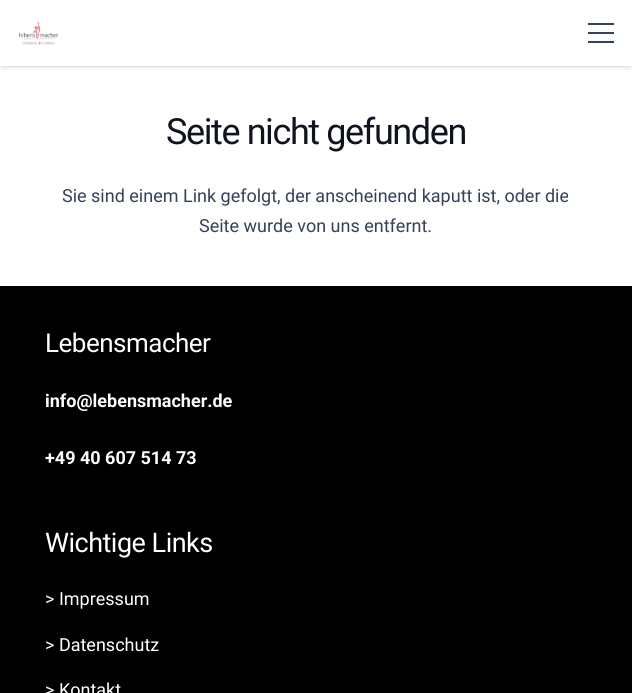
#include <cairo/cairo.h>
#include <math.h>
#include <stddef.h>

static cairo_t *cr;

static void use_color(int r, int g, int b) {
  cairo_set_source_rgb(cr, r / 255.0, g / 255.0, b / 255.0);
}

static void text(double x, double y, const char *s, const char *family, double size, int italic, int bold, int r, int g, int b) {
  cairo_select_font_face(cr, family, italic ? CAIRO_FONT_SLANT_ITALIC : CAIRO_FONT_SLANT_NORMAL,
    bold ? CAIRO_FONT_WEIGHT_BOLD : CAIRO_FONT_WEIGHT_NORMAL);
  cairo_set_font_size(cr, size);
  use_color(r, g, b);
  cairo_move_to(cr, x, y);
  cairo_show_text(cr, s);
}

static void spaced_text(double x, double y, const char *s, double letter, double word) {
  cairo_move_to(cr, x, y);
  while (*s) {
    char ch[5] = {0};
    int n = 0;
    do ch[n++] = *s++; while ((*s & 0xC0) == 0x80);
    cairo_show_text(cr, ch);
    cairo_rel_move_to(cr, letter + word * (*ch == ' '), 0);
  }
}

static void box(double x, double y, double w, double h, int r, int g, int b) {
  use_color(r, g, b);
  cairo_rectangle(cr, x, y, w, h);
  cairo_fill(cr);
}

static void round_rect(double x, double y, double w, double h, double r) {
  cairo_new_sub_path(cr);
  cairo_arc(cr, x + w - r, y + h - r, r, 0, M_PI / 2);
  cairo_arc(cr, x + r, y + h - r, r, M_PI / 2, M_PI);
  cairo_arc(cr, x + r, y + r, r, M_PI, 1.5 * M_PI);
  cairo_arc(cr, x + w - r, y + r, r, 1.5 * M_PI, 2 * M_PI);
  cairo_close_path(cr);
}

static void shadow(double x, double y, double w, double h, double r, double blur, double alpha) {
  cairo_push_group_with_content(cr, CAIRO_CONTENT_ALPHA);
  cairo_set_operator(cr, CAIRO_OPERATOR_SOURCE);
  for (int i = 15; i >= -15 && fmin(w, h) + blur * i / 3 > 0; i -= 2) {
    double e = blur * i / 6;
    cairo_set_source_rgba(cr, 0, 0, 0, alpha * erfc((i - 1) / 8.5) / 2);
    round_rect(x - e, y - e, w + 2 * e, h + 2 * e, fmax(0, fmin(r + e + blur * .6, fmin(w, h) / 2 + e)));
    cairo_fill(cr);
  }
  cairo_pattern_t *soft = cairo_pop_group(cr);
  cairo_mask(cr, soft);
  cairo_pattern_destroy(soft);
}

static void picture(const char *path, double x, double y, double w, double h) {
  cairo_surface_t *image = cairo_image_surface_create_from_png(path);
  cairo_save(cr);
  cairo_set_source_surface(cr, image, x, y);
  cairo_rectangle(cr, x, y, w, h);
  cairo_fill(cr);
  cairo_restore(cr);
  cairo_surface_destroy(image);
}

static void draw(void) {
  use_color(255, 255, 255);
  cairo_paint(cr);
  cairo_save(cr);
  cairo_rectangle(cr, 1, 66, 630, 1);
  cairo_clip(cr);
  use_color(0, 0, 0);
  shadow(1, 3, 630, 64, 0, 0.5, 0.05);
  cairo_restore(cr);
  cairo_save(cr);
  cairo_rectangle(cr, 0, 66, 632, 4);
  cairo_clip(cr);
  use_color(0, 0, 0);
  shadow(1, 4, 630, 64, 0, 2.5, 0.1);
  cairo_restore(cr);
  picture("img_01.png", 19, 21, 40, 24);
  box(588, 32, 26, 2, 53, 65, 91);
  box(588, 23, 26, 2, 53, 65, 91);
  box(588, 41, 26, 2, 53, 65, 91);
  box(0, 286, 632, 407, 0, 0, 0);
  cairo_select_font_face(cr, "Roboto", CAIRO_FONT_SLANT_NORMAL, CAIRO_FONT_WEIGHT_NORMAL);
  cairo_set_font_size(cr, 36);
  use_color(15, 19, 31);
  spaced_text(166, 144, "Seite nicht gefunden", -1.4, 0);
  text(62, 202, "Sie sind einem Link gefolgt, der anscheinend kaputt ist, oder die", "Roboto", 18, 0, 0, 53, 65, 91);
  text(199, 232, "Seite wurde von uns entfernt.", "Roboto", 18, 0, 0, 53, 65, 91);
  cairo_set_font_size(cr, 26);
  use_color(255, 255, 255);
  spaced_text(45, 352, "Lebensmacher", -0.5, 0);
  text(45, 407, "info@lebensmacher.de", "Roboto", 18, 0, 1, 255, 255, 255);
  text(45, 464, "+49 40 607 514 73", "Roboto", 18, 0, 1, 255, 255, 255);
  cairo_select_font_face(cr, "Roboto", CAIRO_FONT_SLANT_NORMAL, CAIRO_FONT_WEIGHT_NORMAL);
  cairo_set_font_size(cr, 27);
  spaced_text(45, 552, "Wichtige Links", -0.5, 0);
  text(45, 605, "> Impressum", "Roboto", 18, 0, 0, 255, 255, 255);
  text(45, 651, "> Datenschutz", "Roboto", 18, 0, 0, 255, 255, 255);
  text(45, 696, "> Kontakt", "Roboto", 18, 0, 0, 255, 255, 255);
}

int main(void) {
  cairo_surface_t *surface = cairo_image_surface_create(CAIRO_FORMAT_RGB24, 632, 693);
  cr = cairo_create(surface);
  cairo_font_options_t *options = cairo_font_options_create();
  cairo_font_options_set_hint_metrics(options, CAIRO_HINT_METRICS_OFF);
  cairo_font_options_set_hint_style(options, CAIRO_HINT_STYLE_NONE);
  cairo_set_font_options(cr, options);
  cairo_set_miter_limit(cr, 4);
  draw();
  cairo_surface_write_to_png(surface, "out.png");
  cairo_font_options_destroy(options);
  cairo_destroy(cr);
  cairo_surface_destroy(surface);
  return 0;
}
